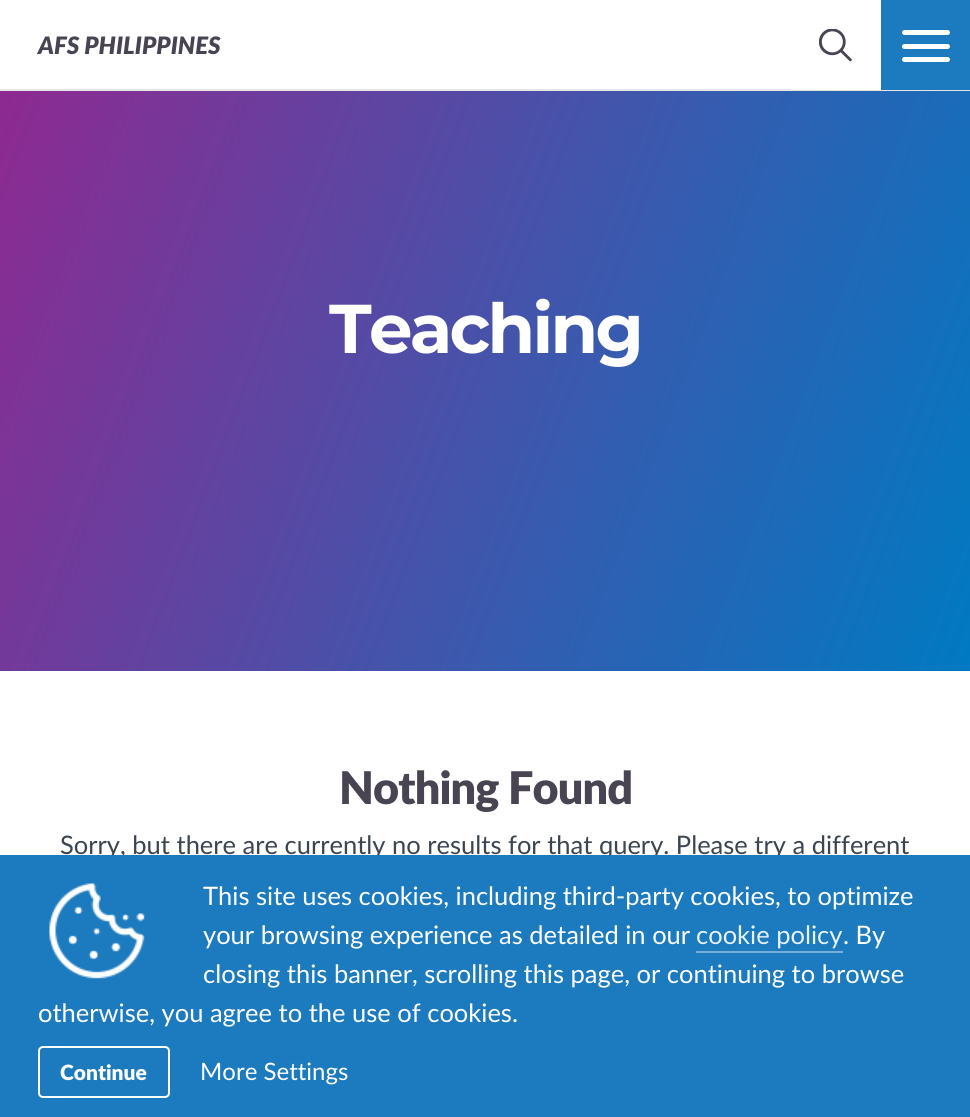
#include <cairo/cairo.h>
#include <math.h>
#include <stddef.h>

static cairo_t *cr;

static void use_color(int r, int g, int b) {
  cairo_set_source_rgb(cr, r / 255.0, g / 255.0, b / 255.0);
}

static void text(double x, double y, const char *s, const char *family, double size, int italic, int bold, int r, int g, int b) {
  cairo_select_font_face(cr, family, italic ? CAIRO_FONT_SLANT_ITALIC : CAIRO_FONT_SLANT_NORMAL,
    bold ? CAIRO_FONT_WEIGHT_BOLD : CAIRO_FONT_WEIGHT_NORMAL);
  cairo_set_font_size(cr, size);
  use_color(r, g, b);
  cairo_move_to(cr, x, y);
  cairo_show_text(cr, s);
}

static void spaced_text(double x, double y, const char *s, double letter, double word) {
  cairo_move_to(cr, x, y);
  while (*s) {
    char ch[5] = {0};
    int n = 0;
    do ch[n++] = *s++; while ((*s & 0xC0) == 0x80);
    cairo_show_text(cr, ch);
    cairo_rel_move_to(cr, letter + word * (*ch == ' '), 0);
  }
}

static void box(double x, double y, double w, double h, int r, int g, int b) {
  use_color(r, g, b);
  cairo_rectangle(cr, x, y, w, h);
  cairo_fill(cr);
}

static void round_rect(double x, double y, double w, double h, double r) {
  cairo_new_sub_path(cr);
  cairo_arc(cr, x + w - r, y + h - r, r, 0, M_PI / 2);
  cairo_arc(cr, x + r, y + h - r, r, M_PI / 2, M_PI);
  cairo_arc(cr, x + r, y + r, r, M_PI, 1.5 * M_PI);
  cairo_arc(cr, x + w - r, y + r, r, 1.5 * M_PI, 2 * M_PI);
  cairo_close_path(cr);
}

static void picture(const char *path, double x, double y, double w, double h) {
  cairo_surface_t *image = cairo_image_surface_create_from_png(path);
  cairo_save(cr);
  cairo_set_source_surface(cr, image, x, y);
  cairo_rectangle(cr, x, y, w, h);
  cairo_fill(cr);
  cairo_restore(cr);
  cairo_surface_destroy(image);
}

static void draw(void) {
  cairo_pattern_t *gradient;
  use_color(255, 255, 255);
  cairo_paint(cr);
  box(0, 89, 970, 2, 230, 230, 230);
  box(791, 89, 90, 1, 255, 255, 255);
  picture("img_01.png", 819, 29, 33, 33);
  box(881, 0, 89, 90, 28, 122, 191);
  use_color(255, 255, 255);
  round_rect(902, 44, 48, 5, 2.5);
  cairo_fill(cr);
  round_rect(902, 30, 48, 5, 2.5);
  cairo_fill(cr);
  round_rect(902, 57, 48, 5, 2.5);
  cairo_fill(cr);
  gradient = cairo_pattern_create_linear(-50, 133, 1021, 538);
  cairo_pattern_add_color_stop_rgba(gradient, 0, 0.573, 0.153, 0.561, 1);
  cairo_pattern_add_color_stop_rgba(gradient, 0.62, 0.208, 0.361, 0.69, 1);
  cairo_pattern_add_color_stop_rgba(gradient, 1, 0, 0.478, 0.761, 1);
  cairo_set_source(cr, gradient);
  cairo_pattern_destroy(gradient);
  cairo_rectangle(cr, 0, 91, 970, 580);
  cairo_fill(cr);
  text(38, 54, "AFS PHILIPPINES", "Lato Black", 24, 1, 0, 73, 68, 82);
  cairo_select_font_face(cr, "Montserrat Thin", CAIRO_FONT_SLANT_NORMAL, CAIRO_FONT_WEIGHT_NORMAL);
  cairo_set_font_size(cr, 69);
  use_color(255, 255, 255);
  spaced_text(329, 353, "Teaching", -2.75, 0);
  cairo_select_font_face(cr, "Lato Black", CAIRO_FONT_SLANT_NORMAL, CAIRO_FONT_WEIGHT_NORMAL);
  cairo_set_font_size(cr, 45);
  use_color(73, 68, 82);
  spaced_text(339, 804, "Nothing Found", -0.9, 0);
  text(60, 854, "Sorry, but there are currently no results for that query. Please try a different", "Lato", 25.5, 0, 0, 59, 68, 79);
  box(0, 855, 970, 262, 28, 122, 191);
  picture("img_02.png", 49, 883, 96, 96);
  text(203, 905, "This site uses cookies, including third-party cookies, to optimize", "Lato", 25.5, 0, 0, 255, 255, 255);
  text(203, 944, "your browsing experience as detailed in our", "Lato", 25.5, 0, 0, 255, 255, 255);
  text(696, 944, "cookie policy", "Lato", 25.5, 0, 0, 232, 242, 249);
  box(696, 951, 147, 2, 119, 175, 217);
  text(843, 944, ". By", "Lato", 25.5, 0, 0, 255, 255, 255);
  text(203, 983, "closing this banner, scrolling this page, or continuing to browse", "Lato", 25.5, 0, 0, 255, 255, 255);
  text(38, 1022, "otherwise, you agree to the use of cookies.", "Lato", 25.5, 0, 0, 255, 255, 255);
  round_rect(39, 1047, 130, 50, 4);
  cairo_stroke(cr);
  text(60, 1080, "Continue", "Lato Black", 21, 0, 0, 255, 255, 255);
  text(200, 1080, "More Settings", "Lato", 24, 0, 0, 255, 255, 255);
}

int main(void) {
  cairo_surface_t *surface = cairo_image_surface_create(CAIRO_FORMAT_RGB24, 970, 1117);
  cr = cairo_create(surface);
  cairo_font_options_t *options = cairo_font_options_create();
  cairo_font_options_set_hint_metrics(options, CAIRO_HINT_METRICS_OFF);
  cairo_font_options_set_hint_style(options, CAIRO_HINT_STYLE_NONE);
  cairo_set_font_options(cr, options);
  cairo_set_miter_limit(cr, 4);
  draw();
  cairo_surface_write_to_png(surface, "out.png");
  cairo_font_options_destroy(options);
  cairo_destroy(cr);
  cairo_surface_destroy(surface);
  return 0;
}
